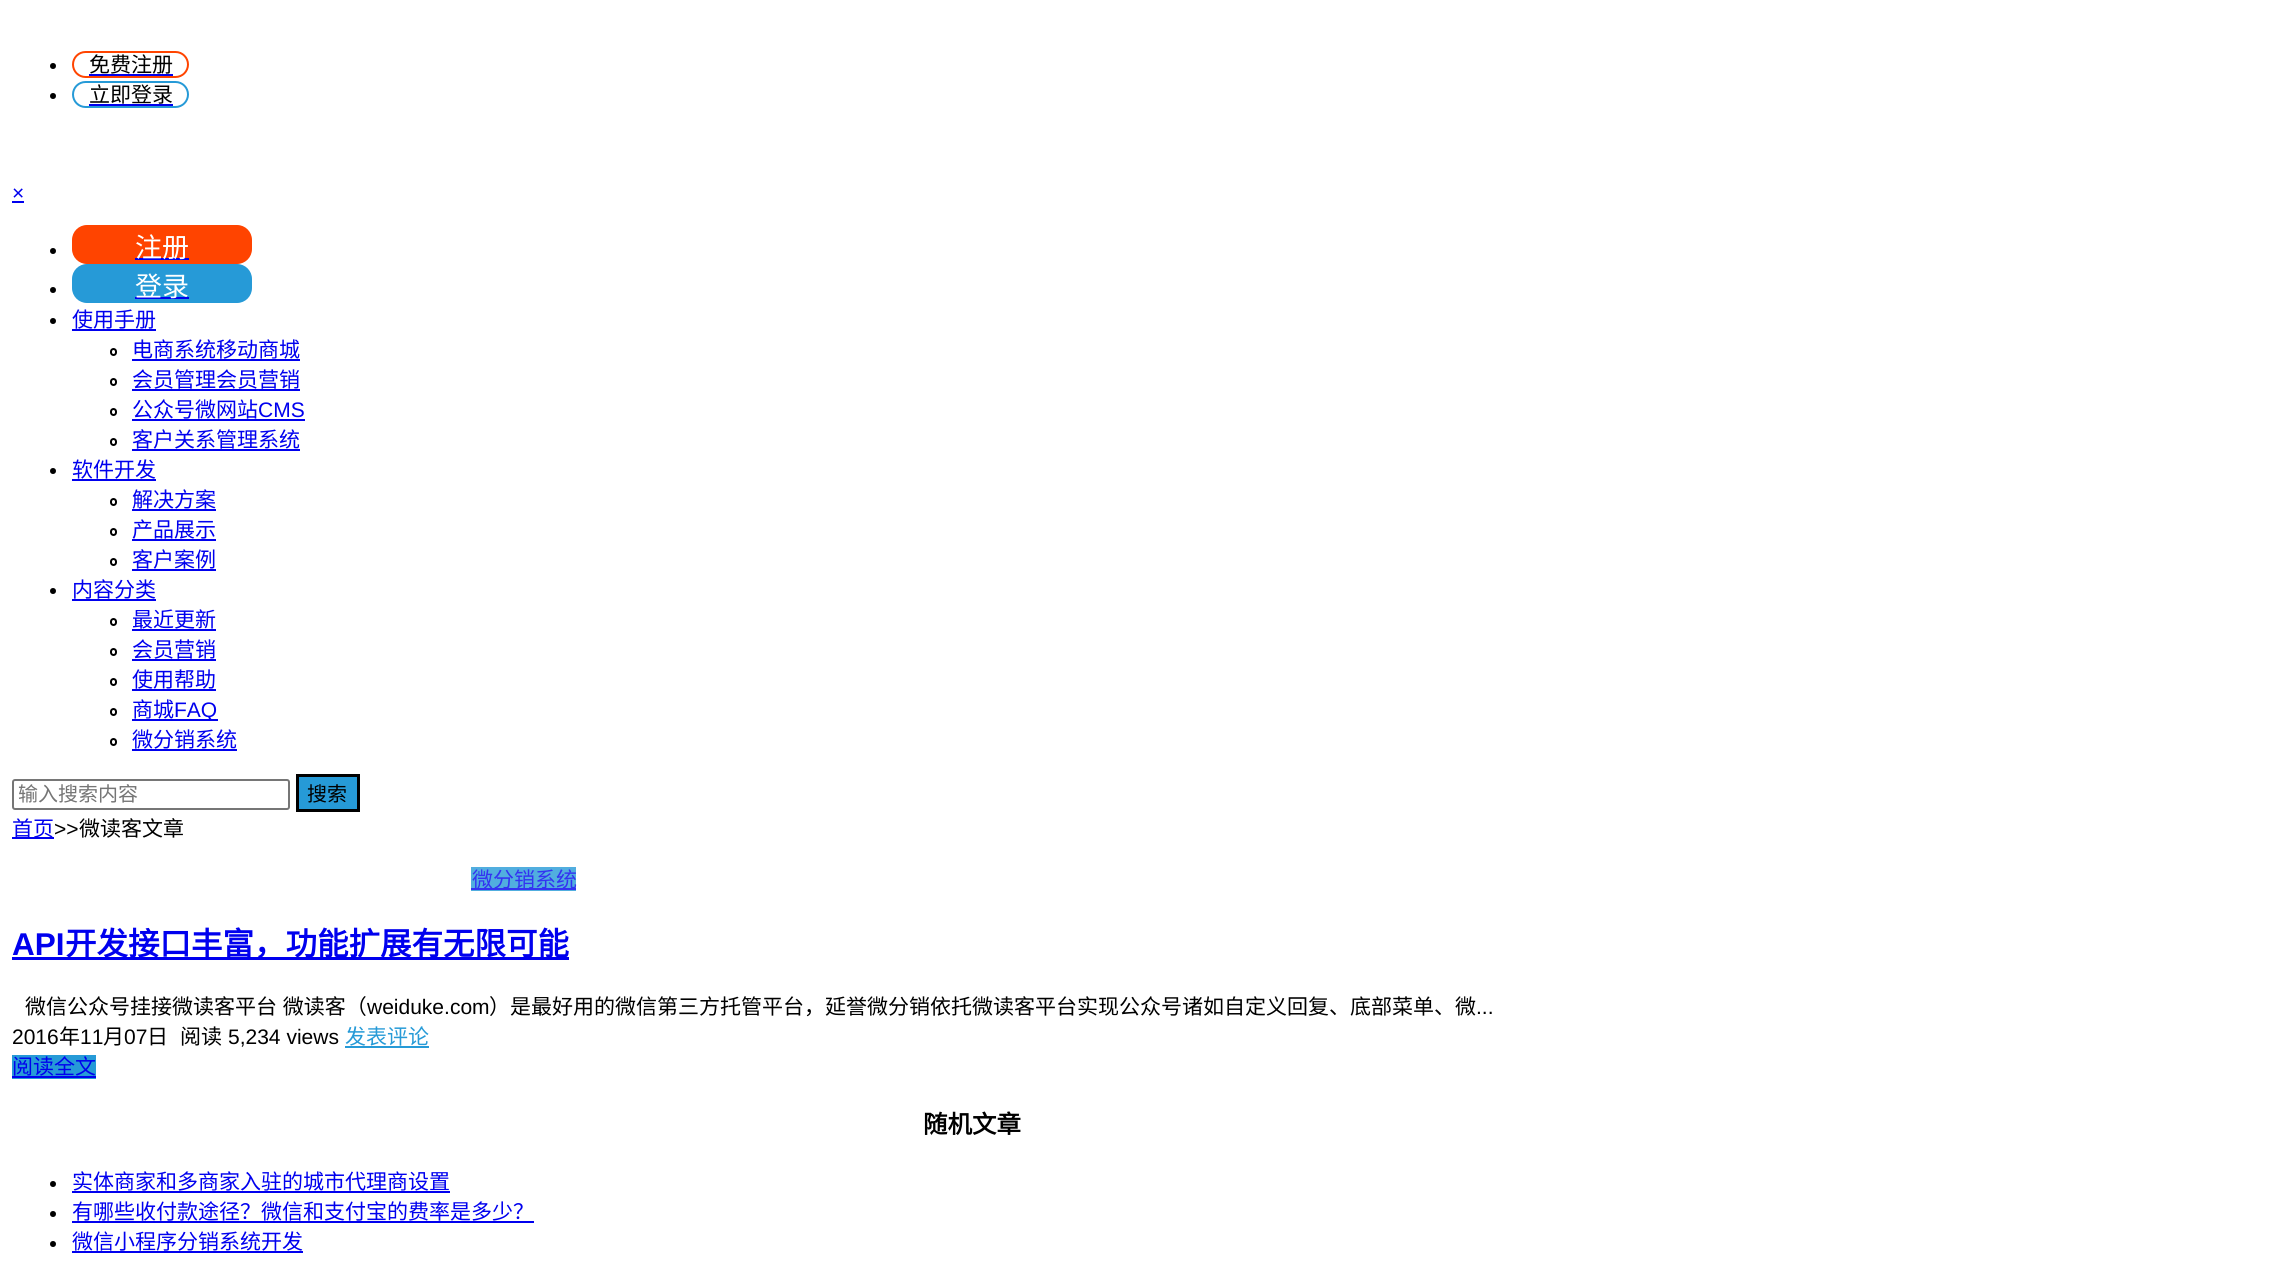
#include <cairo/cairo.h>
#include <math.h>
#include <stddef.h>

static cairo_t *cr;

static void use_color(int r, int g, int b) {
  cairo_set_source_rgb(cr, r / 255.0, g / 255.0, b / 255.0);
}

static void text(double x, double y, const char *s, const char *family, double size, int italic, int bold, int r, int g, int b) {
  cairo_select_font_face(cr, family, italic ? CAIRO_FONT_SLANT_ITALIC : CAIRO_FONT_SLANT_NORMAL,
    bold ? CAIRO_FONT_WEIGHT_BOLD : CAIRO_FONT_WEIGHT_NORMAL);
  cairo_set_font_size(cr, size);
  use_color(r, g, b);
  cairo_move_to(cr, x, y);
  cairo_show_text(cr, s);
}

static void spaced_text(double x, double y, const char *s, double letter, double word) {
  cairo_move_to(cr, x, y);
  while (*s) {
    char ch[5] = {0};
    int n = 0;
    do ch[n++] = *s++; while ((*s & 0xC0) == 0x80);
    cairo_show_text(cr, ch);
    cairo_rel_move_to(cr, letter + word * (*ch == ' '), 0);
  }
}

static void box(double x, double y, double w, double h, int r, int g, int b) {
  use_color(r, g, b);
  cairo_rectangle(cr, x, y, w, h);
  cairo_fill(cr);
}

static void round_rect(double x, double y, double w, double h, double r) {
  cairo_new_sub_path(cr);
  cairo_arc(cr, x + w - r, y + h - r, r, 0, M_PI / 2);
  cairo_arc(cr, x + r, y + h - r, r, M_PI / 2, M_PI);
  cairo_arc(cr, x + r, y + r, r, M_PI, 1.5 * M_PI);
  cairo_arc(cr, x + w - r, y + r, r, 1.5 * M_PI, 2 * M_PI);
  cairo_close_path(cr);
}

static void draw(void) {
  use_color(255, 255, 255);
  cairo_paint(cr);
  use_color(0, 0, 0);
  cairo_arc(cr, 53, 66, 3, 0, 2 * M_PI);
  cairo_fill(cr);
  round_rect(73, 52, 115, 25, 12.5);
  use_color(255, 68, 0);
  cairo_stroke(cr);
  box(89, 74, 84, 2, 0, 0, 238);
  use_color(0, 0, 0);
  cairo_arc(cr, 53, 96, 3, 0, 2 * M_PI);
  cairo_fill(cr);
  round_rect(73, 82, 115, 25, 12.5);
  use_color(38, 154, 215);
  cairo_stroke(cr);
  box(89, 104, 84, 2, 0, 0, 238);
  box(12, 201, 12, 2, 0, 0, 238);
  use_color(0, 0, 0);
  cairo_arc(cr, 53, 251, 3, 0, 2 * M_PI);
  cairo_fill(cr);
  use_color(255, 68, 0);
  round_rect(72, 225, 180, 39, 15);
  cairo_fill(cr);
  box(135, 258, 54, 2, 0, 0, 238);
  use_color(0, 0, 0);
  cairo_arc(cr, 53, 290, 3, 0, 2 * M_PI);
  cairo_fill(cr);
  use_color(38, 154, 215);
  round_rect(72, 264, 180, 39, 15);
  cairo_fill(cr);
  box(135, 297, 54, 2, 0, 0, 238);
  use_color(0, 0, 0);
  cairo_arc(cr, 53, 321, 3, 0, 2 * M_PI);
  cairo_fill(cr);
  box(72, 329, 84, 2, 0, 0, 238);
  round_rect(111, 349, 5, 6, 2.5);
  use_color(0, 0, 0);
  cairo_stroke(cr);
  box(132, 359, 168, 2, 0, 0, 238);
  round_rect(111, 379, 5, 6, 2.5);
  use_color(0, 0, 0);
  cairo_stroke(cr);
  box(132, 389, 168, 2, 0, 0, 238);
  round_rect(111, 409, 5, 6, 2.5);
  use_color(0, 0, 0);
  cairo_stroke(cr);
  box(132, 419, 173, 2, 0, 0, 238);
  round_rect(111, 439, 5, 6, 2.5);
  use_color(0, 0, 0);
  cairo_stroke(cr);
  box(132, 449, 168, 2, 0, 0, 238);
  use_color(0, 0, 0);
  cairo_arc(cr, 53, 471, 3, 0, 2 * M_PI);
  cairo_fill(cr);
  box(72, 479, 84, 2, 0, 0, 238);
  round_rect(111, 499, 5, 6, 2.5);
  use_color(0, 0, 0);
  cairo_stroke(cr);
  box(132, 509, 84, 2, 0, 0, 238);
  round_rect(111, 529, 5, 6, 2.5);
  use_color(0, 0, 0);
  cairo_stroke(cr);
  box(132, 539, 84, 2, 0, 0, 238);
  round_rect(111, 559, 5, 6, 2.5);
  use_color(0, 0, 0);
  cairo_stroke(cr);
  box(132, 569, 84, 2, 0, 0, 238);
  use_color(0, 0, 0);
  cairo_arc(cr, 53, 591, 3, 0, 2 * M_PI);
  cairo_fill(cr);
  box(72, 599, 84, 2, 0, 0, 238);
  round_rect(111, 619, 5, 6, 2.5);
  use_color(0, 0, 0);
  cairo_stroke(cr);
  box(132, 629, 84, 2, 0, 0, 238);
  round_rect(111, 649, 5, 6, 2.5);
  use_color(0, 0, 0);
  cairo_stroke(cr);
  box(132, 659, 84, 2, 0, 0, 238);
  round_rect(111, 679, 5, 6, 2.5);
  use_color(0, 0, 0);
  cairo_stroke(cr);
  box(132, 689, 84, 2, 0, 0, 238);
  round_rect(111, 709, 5, 6, 2.5);
  use_color(0, 0, 0);
  cairo_stroke(cr);
  box(132, 719, 86, 2, 0, 0, 238);
  round_rect(111, 739, 5, 6, 2.5);
  use_color(0, 0, 0);
  cairo_stroke(cr);
  box(132, 749, 105, 2, 0, 0, 238);
  round_rect(13, 780, 276, 29, 2);
  use_color(118, 118, 118);
  cairo_stroke(cr);
  use_color(38, 154, 215);
  cairo_rectangle(cr, 297.5, 775.5, 61, 35);
  cairo_fill_preserve(cr);
  use_color(0, 0, 0);
  cairo_set_line_width(cr, 3);
  cairo_stroke(cr);
  box(12, 837, 42, 2, 0, 0, 238);
  box(471, 867, 105, 24, 81, 174, 223);
  box(471, 888, 105, 2, 51, 51, 241);
  box(12, 957, 557, 3, 0, 0, 238);
  box(345, 1046, 84, 2, 38, 154, 215);
  box(12, 1055, 84, 24, 38, 154, 215);
  box(12, 1076, 84, 2, 0, 0, 238);
  use_color(0, 0, 0);
  cairo_arc(cr, 53, 1184, 3, 0, 2 * M_PI);
  cairo_fill(cr);
  box(72, 1191, 378, 2, 0, 0, 238);
  use_color(0, 0, 0);
  cairo_arc(cr, 53, 1214, 3, 0, 2 * M_PI);
  cairo_fill(cr);
  box(72, 1221, 462, 2, 0, 0, 238);
  use_color(0, 0, 0);
  cairo_arc(cr, 53, 1244, 3, 0, 2 * M_PI);
  cairo_fill(cr);
  box(72, 1251, 231, 2, 0, 0, 238);
  text(89, 72, "免费注册", "Noto Sans CJK SC", 21, 0, 0, 0, 0, 0);
  text(89, 102, "立即登录", "Noto Sans CJK SC", 21, 0, 0, 0, 0, 0);
  text(12, 200, "×", "Liberation Sans", 21, 0, 0, 0, 0, 238);
  text(135, 257, "注册", "Noto Sans CJK SC", 27, 0, 0, 255, 255, 255);
  text(135, 296, "登录", "Noto Sans CJK SC", 27, 0, 0, 255, 255, 255);
  text(72, 327, "使用手册", "Noto Sans CJK SC", 21, 0, 0, 0, 0, 238);
  text(132, 357, "电商系统移动商城", "Noto Sans CJK SC", 21, 0, 0, 0, 0, 238);
  text(132, 387, "会员管理会员营销", "Noto Sans CJK SC", 21, 0, 0, 0, 0, 238);
  text(132, 417, "公众号微网站", "Noto Sans CJK SC", 21, 0, 0, 0, 0, 238);
  text(258, 417, "CMS", "Liberation Sans", 21, 0, 0, 0, 0, 238);
  text(132, 447, "客户关系管理系统", "Noto Sans CJK SC", 21, 0, 0, 0, 0, 238);
  text(72, 477, "软件开发", "Noto Sans CJK SC", 21, 0, 0, 0, 0, 238);
  text(132, 507, "解决方案", "Noto Sans CJK SC", 21, 0, 0, 0, 0, 238);
  text(132, 537, "产品展示", "Noto Sans CJK SC", 21, 0, 0, 0, 0, 238);
  text(132, 567, "客户案例", "Noto Sans CJK SC", 21, 0, 0, 0, 0, 238);
  text(72, 597, "内容分类", "Noto Sans CJK SC", 21, 0, 0, 0, 0, 238);
  text(132, 627, "最近更新", "Noto Sans CJK SC", 21, 0, 0, 0, 0, 238);
  text(132, 657, "会员营销", "Noto Sans CJK SC", 21, 0, 0, 0, 0, 238);
  text(132, 687, "使用帮助", "Noto Sans CJK SC", 21, 0, 0, 0, 0, 238);
  text(132, 717, "商城", "Noto Sans CJK SC", 21, 0, 0, 0, 0, 238);
  text(174, 717, "FAQ", "Liberation Sans", 21, 0, 0, 0, 0, 238);
  text(132, 747, "微分销系统", "Noto Sans CJK SC", 21, 0, 0, 0, 0, 238);
  text(18, 801, "输入搜索内容", "Noto Sans CJK SC", 20, 0, 0, 117, 117, 117);
  text(307, 801, "搜索", "Noto Sans CJK SC", 20, 0, 0, 0, 0, 0);
  text(12, 836, "首页", "Noto Sans CJK SC", 21, 0, 0, 0, 0, 238);
  text(54, 836, ">>", "Liberation Sans", 21, 0, 0, 0, 0, 0);
  text(79, 836, "微读客文章", "Noto Sans CJK SC", 21, 0, 0, 0, 0, 0);
  text(472, 887, "微分销系统", "Noto Sans CJK SC", 21, 0, 0, 51, 51, 241);
  text(12, 955, "API", "Liberation Sans", 31.5, 0, 1, 0, 0, 238);
  text(65, 955, "开发接口丰富，功能扩展有无限可能", "Noto Sans CJK SC", 31.5, 0, 1, 0, 0, 238);
  cairo_select_font_face(cr, "Noto Sans CJK SC", CAIRO_FONT_SLANT_NORMAL, CAIRO_FONT_WEIGHT_NORMAL);
  cairo_set_font_size(cr, 21);
  use_color(0, 0, 0);
  spaced_text(25, 1014, "微信公众号挂接微读客平台 微读客（", 0, 1);
  text(367, 1014, "weiduke.com", "Liberation Sans", 21, 0, 0, 0, 0, 0);
  text(489, 1014, "）是最好用的微信第三方托管平台，延誉微分销依托微读客平台实现公众号诸如自定义回复、底部菜单、微", "Noto Sans CJK SC", 21, 0, 0, 0, 0, 0);
  text(1476, 1014, "...", "Liberation Sans", 21, 0, 0, 0, 0, 0);
  text(12, 1044, "2016", "Liberation Sans", 21, 0, 0, 0, 0, 0);
  text(59, 1044, "年", "Noto Sans CJK SC", 21, 0, 0, 0, 0, 0);
  text(80, 1044, "11", "Liberation Sans", 21, 0, 0, 0, 0, 0);
  text(103, 1044, "月", "Noto Sans CJK SC", 21, 0, 0, 0, 0, 0);
  text(124, 1044, "07", "Liberation Sans", 21, 0, 0, 0, 0, 0);
  text(147, 1044, "日", "Noto Sans CJK SC", 21, 0, 0, 0, 0, 0);
  text(180, 1044, "阅读", "Noto Sans CJK SC", 21, 0, 0, 0, 0, 0);
  text(228, 1044, "5,234 views", "Liberation Sans", 21, 0, 0, 0, 0, 0);
  text(345, 1044, "发表评论", "Noto Sans CJK SC", 21, 0, 0, 38, 154, 215);
  text(12, 1074, "阅读全文", "Noto Sans CJK SC", 21, 0, 0, 0, 0, 238);
  text(923, 1133, "随机文章", "Noto Sans CJK SC", 24.5, 0, 1, 0, 0, 0);
  text(72, 1189, "实体商家和多商家入驻的城市代理商设置", "Noto Sans CJK SC", 21, 0, 0, 0, 0, 238);
  text(72, 1219, "有哪些收付款途径？微信和支付宝的费率是多少？", "Noto Sans CJK SC", 21, 0, 0, 0, 0, 238);
  text(72, 1249, "微信小程序分销系统开发", "Noto Sans CJK SC", 21, 0, 0, 0, 0, 238);
}

int main(void) {
  cairo_surface_t *surface = cairo_image_surface_create(CAIRO_FORMAT_RGB24, 2283, 1267);
  cr = cairo_create(surface);
  cairo_font_options_t *options = cairo_font_options_create();
  cairo_font_options_set_hint_metrics(options, CAIRO_HINT_METRICS_OFF);
  cairo_font_options_set_hint_style(options, CAIRO_HINT_STYLE_NONE);
  cairo_set_font_options(cr, options);
  cairo_set_miter_limit(cr, 4);
  draw();
  cairo_surface_write_to_png(surface, "out.png");
  cairo_font_options_destroy(options);
  cairo_destroy(cr);
  cairo_surface_destroy(surface);
  return 0;
}
